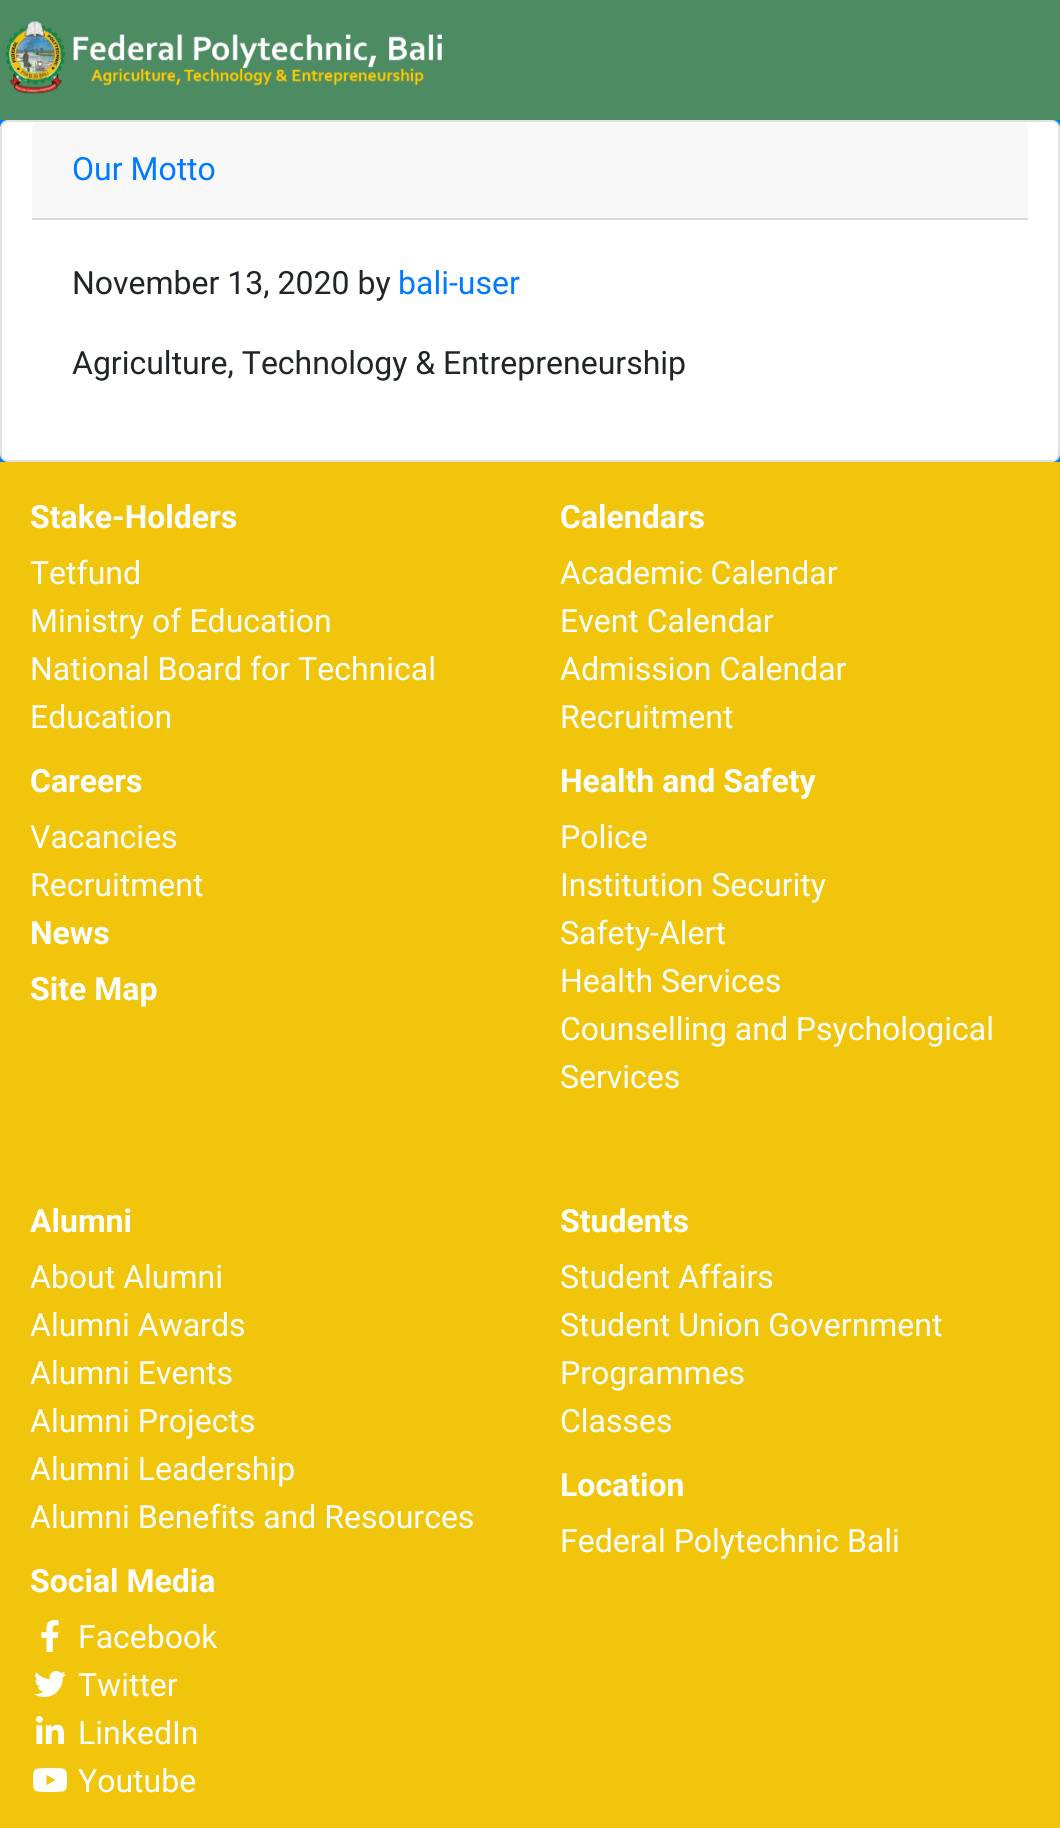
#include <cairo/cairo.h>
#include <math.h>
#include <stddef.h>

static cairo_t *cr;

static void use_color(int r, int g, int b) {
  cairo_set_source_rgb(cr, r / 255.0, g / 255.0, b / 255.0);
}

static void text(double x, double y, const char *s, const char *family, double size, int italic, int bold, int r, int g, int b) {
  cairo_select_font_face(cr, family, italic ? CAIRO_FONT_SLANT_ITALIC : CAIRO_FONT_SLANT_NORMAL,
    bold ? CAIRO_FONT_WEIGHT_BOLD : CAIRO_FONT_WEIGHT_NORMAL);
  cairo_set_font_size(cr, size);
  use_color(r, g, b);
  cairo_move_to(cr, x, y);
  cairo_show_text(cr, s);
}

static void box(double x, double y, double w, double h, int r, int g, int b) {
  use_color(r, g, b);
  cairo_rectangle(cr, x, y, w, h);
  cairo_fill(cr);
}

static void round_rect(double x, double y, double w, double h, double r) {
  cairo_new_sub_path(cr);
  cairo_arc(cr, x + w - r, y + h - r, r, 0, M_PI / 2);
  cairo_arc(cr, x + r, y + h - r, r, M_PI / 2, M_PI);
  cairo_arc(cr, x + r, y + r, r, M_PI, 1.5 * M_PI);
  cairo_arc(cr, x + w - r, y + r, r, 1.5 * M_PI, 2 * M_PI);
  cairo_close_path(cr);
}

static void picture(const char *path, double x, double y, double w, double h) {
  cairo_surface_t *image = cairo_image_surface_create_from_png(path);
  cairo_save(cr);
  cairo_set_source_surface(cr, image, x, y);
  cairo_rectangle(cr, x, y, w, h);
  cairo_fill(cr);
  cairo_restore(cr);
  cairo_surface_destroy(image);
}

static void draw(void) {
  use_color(0, 123, 255);
  cairo_paint(cr);
  box(0, 0, 1060, 120, 77, 139, 98);
  picture("img_01.png", 5, 21, 437, 73);
  use_color(255, 255, 255);
  round_rect(0, 120, 1060, 342, 8);
  cairo_fill(cr);
  round_rect(1, 121, 1058, 340, 7);
  cairo_set_source_rgba(cr, 0, 0, 0, 0.12);
  cairo_stroke(cr);
  use_color(248, 248, 248);
  cairo_new_path(cr);
  cairo_move_to(cr, 38, 122);
  cairo_line_to(cr, 1022, 122);
  cairo_curve_to(cr, 1025.5, 122, 1028, 124.5, 1028, 128);
  cairo_line_to(cr, 1028, 220);
  cairo_line_to(cr, 32, 220);
  cairo_line_to(cr, 32, 128);
  cairo_curve_to(cr, 32, 124.5, 34.5, 122, 38, 122);
  cairo_close_path(cr);
  cairo_fill(cr);
  box(32, 218, 996, 2, 217, 217, 217);
  box(0, 462, 1060, 1366, 241, 197, 11);
  picture("img_02.png", 41, 1620, 18, 32);
  picture("img_03.png", 34, 1671, 32, 26);
  picture("img_04.png", 36, 1716, 28, 28);
  picture("img_05.png", 32, 1768, 36, 24);
  text(72, 180, "Our Motto", "Roboto", 32, 0, 0, 0, 123, 255);
  text(72, 294, "November 13, 2020 by", "Roboto", 32, 0, 0, 33, 37, 41);
  text(398, 294, "bali-user", "Roboto", 32, 0, 0, 0, 123, 255);
  text(72, 374, "Agriculture, Technology & Entrepreneurship", "Roboto", 32, 0, 0, 33, 37, 41);
  text(30, 528, "Stake-Holders", "Roboto", 32, 0, 1, 255, 255, 255);
  text(30, 584, "Tetfund", "Roboto", 32, 0, 0, 255, 255, 255);
  text(30, 632, "Ministry of Education", "Roboto", 32, 0, 0, 255, 255, 255);
  text(30, 680, "National Board for Technical", "Roboto", 32, 0, 0, 255, 255, 255);
  text(30, 728, "Education", "Roboto", 32, 0, 0, 255, 255, 255);
  text(30, 792, "Careers", "Roboto", 32, 0, 1, 255, 255, 255);
  text(30, 848, "Vacancies", "Roboto", 32, 0, 0, 255, 255, 255);
  text(30, 896, "Recruitment", "Roboto", 32, 0, 0, 255, 255, 255);
  text(30, 944, "News", "Roboto", 32, 0, 1, 255, 255, 255);
  text(30, 1000, "Site Map", "Roboto", 32, 0, 1, 255, 255, 255);
  text(560, 528, "Calendars", "Roboto", 32, 0, 1, 255, 255, 255);
  text(560, 584, "Academic Calendar", "Roboto", 32, 0, 0, 255, 255, 255);
  text(560, 632, "Event Calendar", "Roboto", 32, 0, 0, 255, 255, 255);
  text(560, 680, "Admission Calendar", "Roboto", 32, 0, 0, 255, 255, 255);
  text(560, 728, "Recruitment", "Roboto", 32, 0, 0, 255, 255, 255);
  text(560, 792, "Health and Safety", "Roboto", 32, 0, 1, 255, 255, 255);
  text(560, 848, "Police", "Roboto", 32, 0, 0, 255, 255, 255);
  text(560, 896, "Institution Security", "Roboto", 32, 0, 0, 255, 255, 255);
  text(560, 944, "Safety-Alert", "Roboto", 32, 0, 0, 255, 255, 255);
  text(560, 992, "Health Services", "Roboto", 32, 0, 0, 255, 255, 255);
  text(560, 1040, "Counselling and Psychological", "Roboto", 32, 0, 0, 255, 255, 255);
  text(560, 1088, "Services", "Roboto", 32, 0, 0, 255, 255, 255);
  text(30, 1232, "Alumni", "Roboto", 32, 0, 1, 255, 255, 255);
  text(30, 1288, "About Alumni", "Roboto", 32, 0, 0, 255, 255, 255);
  text(30, 1336, "Alumni Awards", "Roboto", 32, 0, 0, 255, 255, 255);
  text(30, 1384, "Alumni Events", "Roboto", 32, 0, 0, 255, 255, 255);
  text(30, 1432, "Alumni Projects", "Roboto", 32, 0, 0, 255, 255, 255);
  text(30, 1480, "Alumni Leadership", "Roboto", 32, 0, 0, 255, 255, 255);
  text(30, 1528, "Alumni Benefits and Resources", "Roboto", 32, 0, 0, 255, 255, 255);
  text(30, 1592, "Social Media", "Roboto", 32, 0, 1, 255, 255, 255);
  text(78, 1648, "Facebook", "Roboto", 32, 0, 0, 255, 255, 255);
  text(78, 1696, "Twitter", "Roboto", 32, 0, 0, 255, 255, 255);
  text(78, 1744, "LinkedIn", "Roboto", 32, 0, 0, 255, 255, 255);
  text(78, 1792, "Youtube", "Roboto", 32, 0, 0, 255, 255, 255);
  text(560, 1232, "Students", "Roboto", 32, 0, 1, 255, 255, 255);
  text(560, 1288, "Student Affairs", "Roboto", 32, 0, 0, 255, 255, 255);
  text(560, 1336, "Student Union Government", "Roboto", 32, 0, 0, 255, 255, 255);
  text(560, 1384, "Programmes", "Roboto", 32, 0, 0, 255, 255, 255);
  text(560, 1432, "Classes", "Roboto", 32, 0, 0, 255, 255, 255);
  text(560, 1496, "Location", "Roboto", 32, 0, 1, 255, 255, 255);
  text(560, 1552, "Federal Polytechnic Bali", "Roboto", 32, 0, 0, 255, 255, 255);
}

int main(void) {
  cairo_surface_t *surface = cairo_image_surface_create(CAIRO_FORMAT_RGB24, 1060, 1828);
  cr = cairo_create(surface);
  cairo_font_options_t *options = cairo_font_options_create();
  cairo_font_options_set_hint_metrics(options, CAIRO_HINT_METRICS_OFF);
  cairo_font_options_set_hint_style(options, CAIRO_HINT_STYLE_NONE);
  cairo_set_font_options(cr, options);
  cairo_set_miter_limit(cr, 4);
  draw();
  cairo_surface_write_to_png(surface, "out.png");
  cairo_font_options_destroy(options);
  cairo_destroy(cr);
  cairo_surface_destroy(surface);
  return 0;
}
